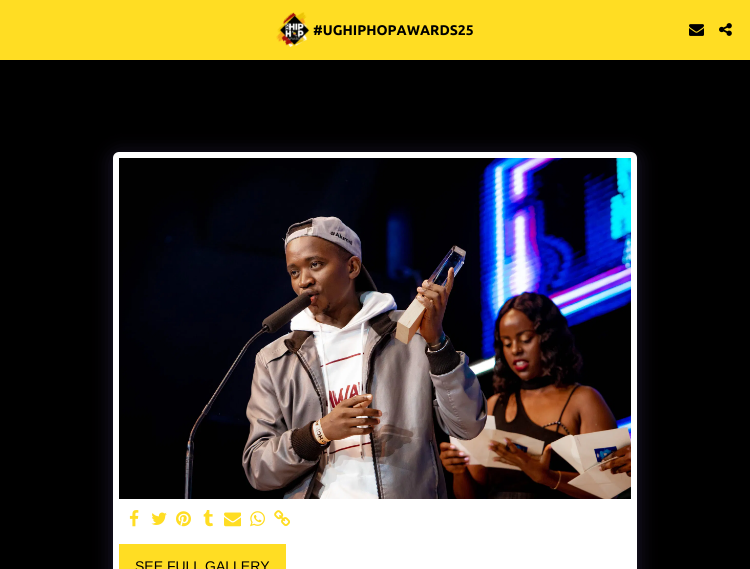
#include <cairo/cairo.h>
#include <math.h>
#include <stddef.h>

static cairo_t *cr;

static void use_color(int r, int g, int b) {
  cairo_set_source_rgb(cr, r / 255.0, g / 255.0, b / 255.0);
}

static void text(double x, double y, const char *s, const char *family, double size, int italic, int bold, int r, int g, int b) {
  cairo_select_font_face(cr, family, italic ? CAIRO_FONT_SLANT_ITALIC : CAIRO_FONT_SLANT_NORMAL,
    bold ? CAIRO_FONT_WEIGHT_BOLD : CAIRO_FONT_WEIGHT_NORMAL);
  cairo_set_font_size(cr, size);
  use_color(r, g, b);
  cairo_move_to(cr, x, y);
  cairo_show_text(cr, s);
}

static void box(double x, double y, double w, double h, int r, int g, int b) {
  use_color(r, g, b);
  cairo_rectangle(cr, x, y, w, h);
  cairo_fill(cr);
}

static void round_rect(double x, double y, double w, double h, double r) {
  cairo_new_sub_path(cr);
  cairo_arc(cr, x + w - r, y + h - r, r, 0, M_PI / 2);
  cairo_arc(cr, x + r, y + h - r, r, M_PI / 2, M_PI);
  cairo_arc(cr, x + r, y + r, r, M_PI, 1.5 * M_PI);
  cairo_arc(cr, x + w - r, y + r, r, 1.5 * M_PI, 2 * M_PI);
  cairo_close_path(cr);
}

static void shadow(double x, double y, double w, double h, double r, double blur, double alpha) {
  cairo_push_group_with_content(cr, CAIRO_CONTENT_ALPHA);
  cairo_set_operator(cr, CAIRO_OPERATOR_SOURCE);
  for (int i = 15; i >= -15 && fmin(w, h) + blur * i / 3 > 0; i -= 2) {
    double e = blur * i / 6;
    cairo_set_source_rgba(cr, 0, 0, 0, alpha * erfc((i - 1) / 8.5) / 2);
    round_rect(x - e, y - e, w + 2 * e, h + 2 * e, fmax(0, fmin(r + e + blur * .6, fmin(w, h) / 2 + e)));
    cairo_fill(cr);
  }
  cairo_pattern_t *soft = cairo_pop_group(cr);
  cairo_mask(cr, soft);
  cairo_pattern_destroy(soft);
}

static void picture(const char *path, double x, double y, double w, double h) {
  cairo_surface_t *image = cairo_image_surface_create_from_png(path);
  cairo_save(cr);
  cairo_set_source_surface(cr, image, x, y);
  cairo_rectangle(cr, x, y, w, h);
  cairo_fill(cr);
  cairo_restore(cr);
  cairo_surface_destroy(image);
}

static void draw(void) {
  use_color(0, 0, 0);
  cairo_paint(cr);
  box(0, 0, 750, 60, 255, 221, 35);
  picture("img_01.png", 276, 12, 34, 35);
  picture("img_02.png", 689, 24, 15, 12);
  picture("img_03.png", 719, 23, 13, 13);
  use_color(77, 63, 122);
  shadow(113, 155, 524, 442, 6, 10, 0.4);
  use_color(255, 255, 255);
  round_rect(113, 152, 524, 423, 6);
  cairo_fill(cr);
  picture("img_04.png", 119, 158, 512, 341);
  picture("img_05.png", 129, 510, 10, 17);
  picture("img_06.png", 151, 512, 16, 13);
  picture("img_07.png", 176, 511, 15, 16);
  picture("img_08.png", 203, 510, 10, 17);
  picture("img_09.png", 224, 512, 17, 15);
  picture("img_10.png", 250, 511, 15, 16);
  picture("img_11.png", 274, 510, 16, 17);
  box(119, 544, 167, 25, 255, 221, 35);
  text(313, 35, "#UGHIPHOPAWARDS25", "Ubuntu", 14, 0, 1, 0, 0, 0);
  text(135, 571, "SEE FULL GALLERY", "Liberation Sans", 14, 0, 0, 0, 0, 0);
}

int main(void) {
  cairo_surface_t *surface = cairo_image_surface_create(CAIRO_FORMAT_RGB24, 750, 569);
  cr = cairo_create(surface);
  cairo_font_options_t *options = cairo_font_options_create();
  cairo_font_options_set_hint_metrics(options, CAIRO_HINT_METRICS_OFF);
  cairo_font_options_set_hint_style(options, CAIRO_HINT_STYLE_NONE);
  cairo_set_font_options(cr, options);
  cairo_set_miter_limit(cr, 4);
  draw();
  cairo_surface_write_to_png(surface, "out.png");
  cairo_font_options_destroy(options);
  cairo_destroy(cr);
  cairo_surface_destroy(surface);
  return 0;
}
